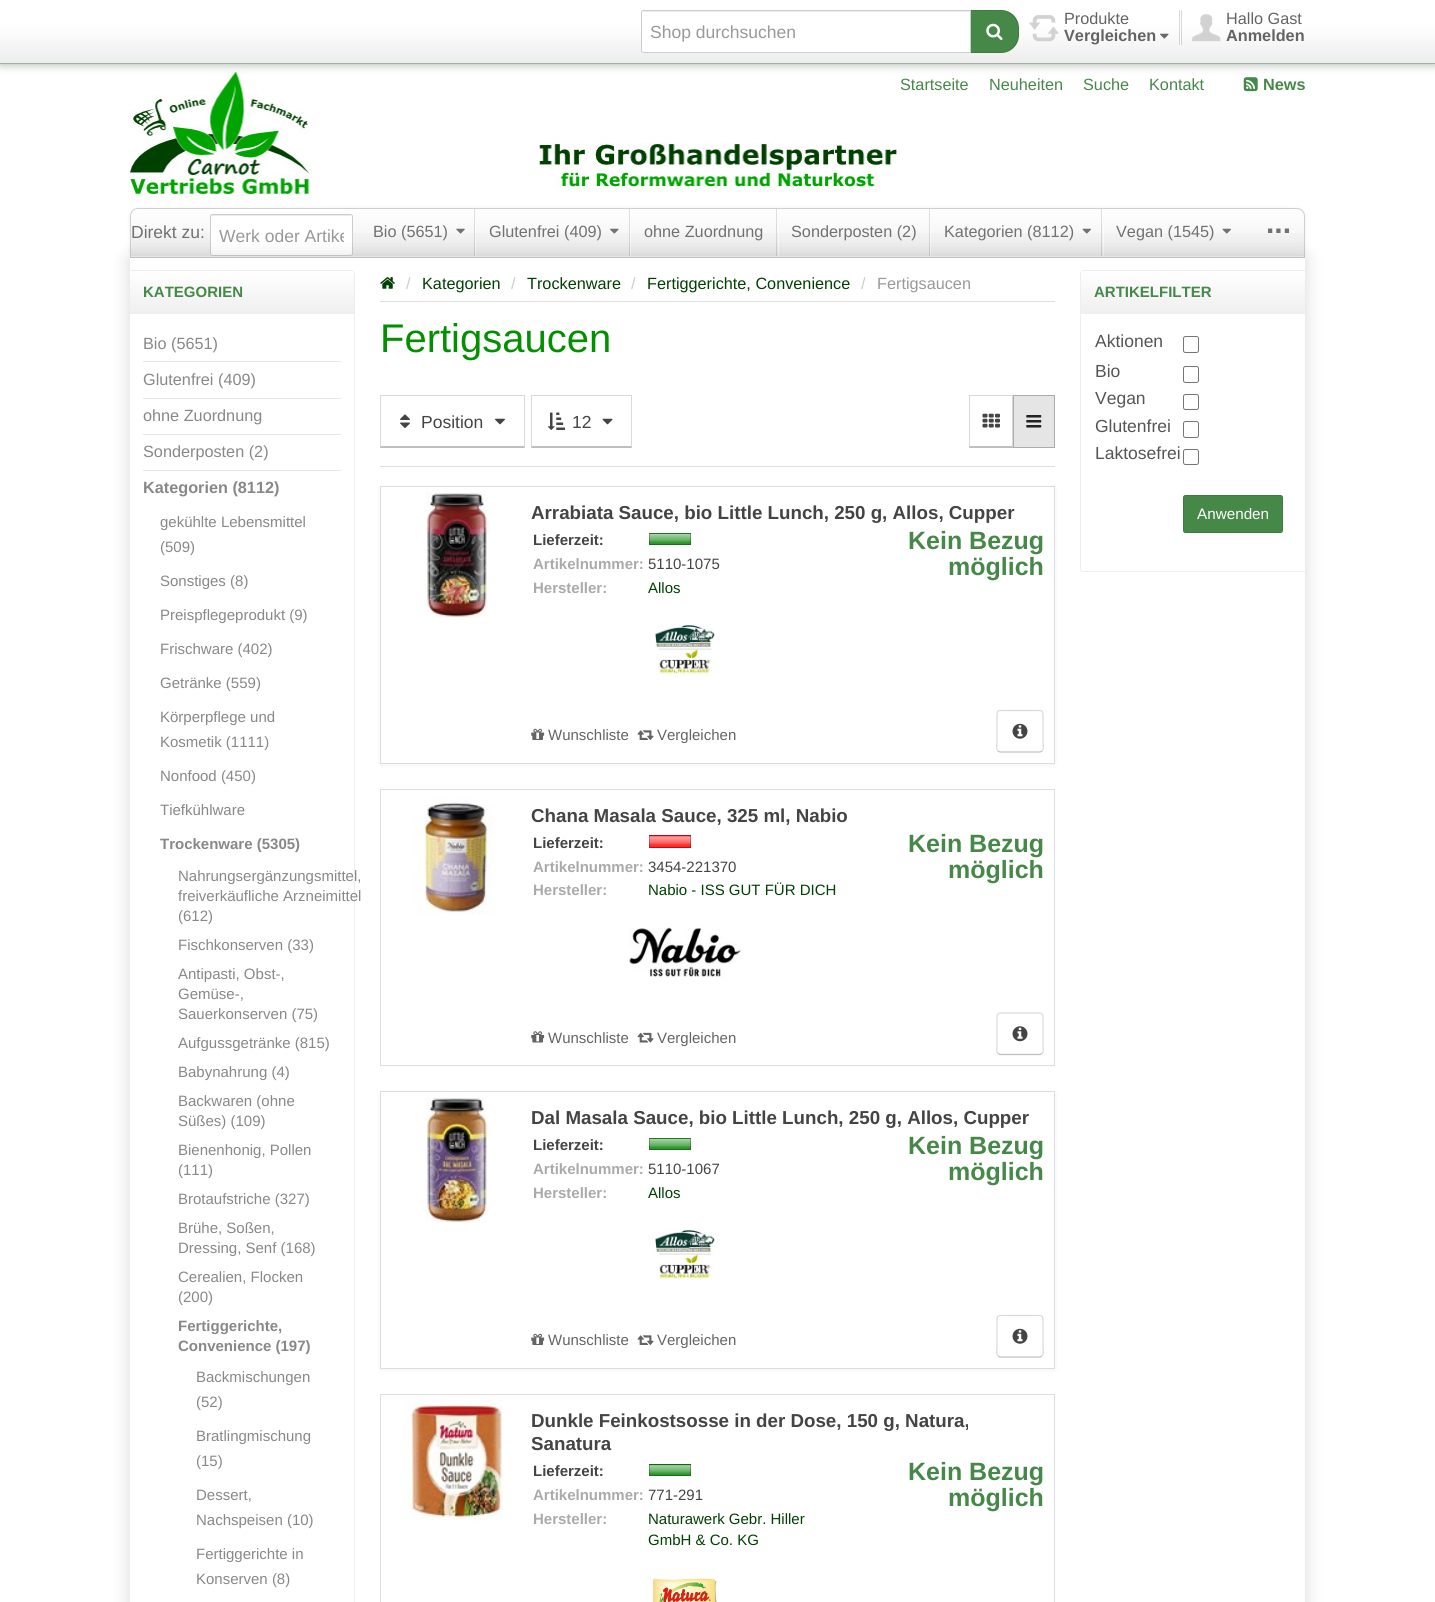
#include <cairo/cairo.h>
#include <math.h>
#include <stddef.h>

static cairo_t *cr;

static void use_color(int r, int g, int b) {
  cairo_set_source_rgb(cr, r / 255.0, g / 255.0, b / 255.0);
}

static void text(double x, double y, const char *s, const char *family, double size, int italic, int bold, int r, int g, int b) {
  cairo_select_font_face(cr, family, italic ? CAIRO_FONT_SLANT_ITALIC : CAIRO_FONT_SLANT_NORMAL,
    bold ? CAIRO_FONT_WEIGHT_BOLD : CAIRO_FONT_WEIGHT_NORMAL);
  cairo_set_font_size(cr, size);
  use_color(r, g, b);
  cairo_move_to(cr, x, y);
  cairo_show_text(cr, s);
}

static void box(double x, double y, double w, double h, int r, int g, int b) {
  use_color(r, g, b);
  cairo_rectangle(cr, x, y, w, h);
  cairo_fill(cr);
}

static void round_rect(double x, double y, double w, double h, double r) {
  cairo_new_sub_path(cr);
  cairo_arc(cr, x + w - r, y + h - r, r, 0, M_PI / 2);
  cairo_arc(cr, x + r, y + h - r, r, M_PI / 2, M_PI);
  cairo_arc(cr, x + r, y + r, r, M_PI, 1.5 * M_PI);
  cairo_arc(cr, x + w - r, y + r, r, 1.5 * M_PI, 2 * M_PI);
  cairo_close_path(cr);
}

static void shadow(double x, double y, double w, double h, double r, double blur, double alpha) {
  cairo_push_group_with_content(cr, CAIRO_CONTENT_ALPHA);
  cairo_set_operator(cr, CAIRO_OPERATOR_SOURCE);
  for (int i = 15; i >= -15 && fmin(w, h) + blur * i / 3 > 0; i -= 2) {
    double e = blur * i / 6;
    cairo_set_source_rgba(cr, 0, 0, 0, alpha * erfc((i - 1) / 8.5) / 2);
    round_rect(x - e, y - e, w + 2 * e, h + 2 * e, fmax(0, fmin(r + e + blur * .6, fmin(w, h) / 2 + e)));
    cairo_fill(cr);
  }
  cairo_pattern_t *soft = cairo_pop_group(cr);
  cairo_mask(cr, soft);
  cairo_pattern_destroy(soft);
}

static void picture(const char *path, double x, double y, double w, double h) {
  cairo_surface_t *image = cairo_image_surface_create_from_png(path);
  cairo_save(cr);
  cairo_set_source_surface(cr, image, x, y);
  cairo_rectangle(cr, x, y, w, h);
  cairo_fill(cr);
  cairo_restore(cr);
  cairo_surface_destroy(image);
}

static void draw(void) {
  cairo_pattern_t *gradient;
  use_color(255, 255, 255);
  cairo_paint(cr);
  picture("img_04.png", 130, 70, 771, 125);
  picture("img_05.png", 1243, 77, 15, 15);
  use_color(162, 176, 162);
  shadow(0, 0, 1435, 64, 0, 5, 1);
  gradient = cairo_pattern_create_linear(718, 0, 718, 63);
  cairo_pattern_add_color_stop_rgba(gradient, 0, 1, 1, 1, 1);
  cairo_pattern_add_color_stop_rgba(gradient, 0.4, 1, 1, 1, 1);
  cairo_pattern_add_color_stop_rgba(gradient, 1, 0.929, 0.929, 0.929, 1);
  cairo_set_source(cr, gradient);
  cairo_pattern_destroy(gradient);
  cairo_rectangle(cr, 0, 0, 1435, 63);
  cairo_fill(cr);
  gradient = cairo_pattern_create_linear(718, 0, 718, 63);
  cairo_pattern_add_color_stop_rgba(gradient, 0, 0.851, 0.851, 0.851, 1);
  cairo_pattern_add_color_stop_rgba(gradient, 0.4, 0.851, 0.851, 0.851, 1);
  cairo_pattern_add_color_stop_rgba(gradient, 1, 0.788, 0.788, 0.788, 1);
  cairo_set_source(cr, gradient);
  cairo_pattern_destroy(gradient);
  cairo_rectangle(cr, 1179, 10, 3, 35);
  cairo_fill(cr);
  box(0, 63, 1435, 1, 162, 176, 162);
  use_color(70, 136, 71);
  cairo_new_path(cr);
  cairo_move_to(cr, 970, 10);
  cairo_line_to(cr, 1001, 10);
  cairo_curve_to(cr, 1011, 10, 1019, 18, 1019, 28);
  cairo_line_to(cr, 1019, 35);
  cairo_curve_to(cr, 1019, 45, 1011, 53, 1001, 53);
  cairo_line_to(cr, 970, 53);
  cairo_close_path(cr);
  cairo_fill(cr);
  cairo_new_path(cr);
  cairo_move_to(cr, 970.5, 10.5);
  cairo_line_to(cr, 1001, 10.5);
  cairo_curve_to(cr, 1010.5, 10.5, 1018.5, 18.5, 1018.5, 28);
  cairo_line_to(cr, 1018.5, 35);
  cairo_curve_to(cr, 1018.5, 44.5, 1010.5, 52.5, 1001, 52.5);
  cairo_line_to(cr, 970.5, 52.5);
  cairo_close_path(cr);
  cairo_set_source_rgba(cr, 0, 0, 0, 0.1);
  cairo_set_line_width(cr, 1);
  cairo_stroke(cr);
  use_color(255, 255, 255);
  cairo_new_path(cr);
  cairo_move_to(cr, 643.5, 10);
  cairo_line_to(cr, 971, 10);
  cairo_line_to(cr, 971, 53);
  cairo_line_to(cr, 643.5, 53);
  cairo_curve_to(cr, 642, 53, 641, 52, 641, 50.5);
  cairo_line_to(cr, 641, 12.5);
  cairo_curve_to(cr, 641, 11, 642, 10, 643.5, 10);
  cairo_close_path(cr);
  cairo_fill(cr);
  use_color(236, 236, 236);
  cairo_new_path(cr);
  cairo_move_to(cr, 644, 12);
  cairo_line_to(cr, 970, 12);
  cairo_line_to(cr, 970, 11);
  cairo_line_to(cr, 644, 11);
  cairo_curve_to(cr, 643, 11, 643, 12, 643, 12);
  cairo_close_path(cr);
  cairo_fill(cr);
  cairo_new_path(cr);
  cairo_move_to(cr, 643.5, 10.5);
  cairo_line_to(cr, 970.5, 10.5);
  cairo_line_to(cr, 970.5, 52.5);
  cairo_line_to(cr, 643.5, 52.5);
  cairo_curve_to(cr, 642.5, 52.5, 641.5, 51.5, 641.5, 50.5);
  cairo_line_to(cr, 641.5, 12.5);
  cairo_curve_to(cr, 641.5, 11.5, 642.5, 10.5, 643.5, 10.5);
  cairo_close_path(cr);
  use_color(204, 204, 204);
  cairo_stroke(cr);
  picture("img_01.png", 986, 23, 17, 17);
  picture("img_02.png", 1160, 33, 9, 6);
  box(1180, 10, 1, 35, 255, 255, 255);
  picture("img_03.png", 1192, 14, 29, 28);
  use_color(0, 0, 0);
  shadow(130, 209, 1175, 50, 8, 2.5, 0.07);
  use_color(245, 245, 245);
  cairo_new_path(cr);
  cairo_move_to(cr, 138, 208);
  cairo_line_to(cr, 1297, 208);
  cairo_curve_to(cr, 1301.5, 208, 1305, 211.5, 1305, 216);
  cairo_line_to(cr, 1305, 258);
  cairo_line_to(cr, 130, 258);
  cairo_line_to(cr, 130, 216);
  cairo_curve_to(cr, 130, 211.5, 133.5, 208, 138, 208);
  cairo_close_path(cr);
  cairo_fill(cr);
  cairo_save(cr);
  cairo_new_path(cr);
  cairo_move_to(cr, 138, 208);
  cairo_line_to(cr, 1297, 208);
  cairo_curve_to(cr, 1301.5, 208, 1305, 211.5, 1305, 216);
  cairo_line_to(cr, 1305, 258);
  cairo_line_to(cr, 130, 258);
  cairo_line_to(cr, 130, 216);
  cairo_curve_to(cr, 130, 211.5, 133.5, 208, 138, 208);
  cairo_close_path(cr);
  cairo_clip(cr);
  gradient = cairo_pattern_create_linear(718, 209, 718, 256);
  cairo_pattern_add_color_stop_rgba(gradient, 0, 1, 1, 1, 1);
  cairo_pattern_add_color_stop_rgba(gradient, 0.5, 0.969, 0.969, 0.969, 1);
  cairo_pattern_add_color_stop_rgba(gradient, 0.51, 0.953, 0.953, 0.953, 1);
  cairo_pattern_add_color_stop_rgba(gradient, 1, 0.91, 0.91, 0.91, 1);
  cairo_set_source(cr, gradient);
  cairo_pattern_destroy(gradient);
  cairo_rectangle(cr, 130, 209, 1175, 47);
  cairo_fill(cr);
  cairo_restore(cr);
  gradient = cairo_pattern_create_linear(718, 209, 718, 256);
  cairo_pattern_add_color_stop_rgba(gradient, 0, 0.878, 0.878, 0.878, 1);
  cairo_pattern_add_color_stop_rgba(gradient, 0.5, 0.851, 0.851, 0.851, 1);
  cairo_pattern_add_color_stop_rgba(gradient, 0.51, 0.839, 0.839, 0.839, 1);
  cairo_pattern_add_color_stop_rgba(gradient, 1, 0.8, 0.8, 0.8, 1);
  cairo_set_source(cr, gradient);
  cairo_pattern_destroy(gradient);
  cairo_rectangle(cr, 1101, 209, 1, 47);
  cairo_fill(cr);
  gradient = cairo_pattern_create_linear(718, 209, 718, 256);
  cairo_pattern_add_color_stop_rgba(gradient, 0, 1, 1, 1, 1);
  cairo_pattern_add_color_stop_rgba(gradient, 0.5, 0.984, 0.984, 0.984, 1);
  cairo_pattern_add_color_stop_rgba(gradient, 0.51, 0.976, 0.976, 0.976, 1);
  cairo_pattern_add_color_stop_rgba(gradient, 1, 0.957, 0.957, 0.957, 1);
  cairo_set_source(cr, gradient);
  cairo_pattern_destroy(gradient);
  cairo_rectangle(cr, 1103, 222, 1, 34);
  cairo_fill(cr);
  gradient = cairo_pattern_create_linear(718, 209, 718, 256);
  cairo_pattern_add_color_stop_rgba(gradient, 0, 0.878, 0.878, 0.878, 1);
  cairo_pattern_add_color_stop_rgba(gradient, 0.5, 0.851, 0.851, 0.851, 1);
  cairo_pattern_add_color_stop_rgba(gradient, 0.51, 0.839, 0.839, 0.839, 1);
  cairo_pattern_add_color_stop_rgba(gradient, 1, 0.8, 0.8, 0.8, 1);
  cairo_set_source(cr, gradient);
  cairo_pattern_destroy(gradient);
  cairo_rectangle(cr, 929, 209, 1, 47);
  cairo_fill(cr);
  gradient = cairo_pattern_create_linear(718, 209, 718, 256);
  cairo_pattern_add_color_stop_rgba(gradient, 0, 1, 1, 1, 1);
  cairo_pattern_add_color_stop_rgba(gradient, 0.5, 0.984, 0.984, 0.984, 1);
  cairo_pattern_add_color_stop_rgba(gradient, 0.51, 0.976, 0.976, 0.976, 1);
  cairo_pattern_add_color_stop_rgba(gradient, 1, 0.957, 0.957, 0.957, 1);
  cairo_set_source(cr, gradient);
  cairo_pattern_destroy(gradient);
  cairo_rectangle(cr, 930, 222, 1, 34);
  cairo_fill(cr);
  gradient = cairo_pattern_create_linear(718, 209, 718, 256);
  cairo_pattern_add_color_stop_rgba(gradient, 0, 0.878, 0.878, 0.878, 1);
  cairo_pattern_add_color_stop_rgba(gradient, 0.5, 0.851, 0.851, 0.851, 1);
  cairo_pattern_add_color_stop_rgba(gradient, 0.51, 0.839, 0.839, 0.839, 1);
  cairo_pattern_add_color_stop_rgba(gradient, 1, 0.8, 0.8, 0.8, 1);
  cairo_set_source(cr, gradient);
  cairo_pattern_destroy(gradient);
  cairo_rectangle(cr, 776, 209, 1, 47);
  cairo_fill(cr);
  gradient = cairo_pattern_create_linear(718, 209, 718, 256);
  cairo_pattern_add_color_stop_rgba(gradient, 0, 1, 1, 1, 1);
  cairo_pattern_add_color_stop_rgba(gradient, 0.5, 0.984, 0.984, 0.984, 1);
  cairo_pattern_add_color_stop_rgba(gradient, 0.51, 0.976, 0.976, 0.976, 1);
  cairo_pattern_add_color_stop_rgba(gradient, 1, 0.957, 0.957, 0.957, 1);
  cairo_set_source(cr, gradient);
  cairo_pattern_destroy(gradient);
  cairo_rectangle(cr, 778, 222, 1, 34);
  cairo_fill(cr);
  gradient = cairo_pattern_create_linear(718, 209, 718, 256);
  cairo_pattern_add_color_stop_rgba(gradient, 0, 0.878, 0.878, 0.878, 1);
  cairo_pattern_add_color_stop_rgba(gradient, 0.5, 0.851, 0.851, 0.851, 1);
  cairo_pattern_add_color_stop_rgba(gradient, 0.51, 0.839, 0.839, 0.839, 1);
  cairo_pattern_add_color_stop_rgba(gradient, 1, 0.8, 0.8, 0.8, 1);
  cairo_set_source(cr, gradient);
  cairo_pattern_destroy(gradient);
  cairo_rectangle(cr, 629, 209, 1, 47);
  cairo_fill(cr);
  gradient = cairo_pattern_create_linear(718, 209, 718, 256);
  cairo_pattern_add_color_stop_rgba(gradient, 0, 1, 1, 1, 1);
  cairo_pattern_add_color_stop_rgba(gradient, 0.5, 0.984, 0.984, 0.984, 1);
  cairo_pattern_add_color_stop_rgba(gradient, 0.51, 0.976, 0.976, 0.976, 1);
  cairo_pattern_add_color_stop_rgba(gradient, 1, 0.957, 0.957, 0.957, 1);
  cairo_set_source(cr, gradient);
  cairo_pattern_destroy(gradient);
  cairo_rectangle(cr, 630, 222, 1, 34);
  cairo_fill(cr);
  gradient = cairo_pattern_create_linear(718, 209, 718, 256);
  cairo_pattern_add_color_stop_rgba(gradient, 0, 0.878, 0.878, 0.878, 1);
  cairo_pattern_add_color_stop_rgba(gradient, 0.5, 0.851, 0.851, 0.851, 1);
  cairo_pattern_add_color_stop_rgba(gradient, 0.51, 0.839, 0.839, 0.839, 1);
  cairo_pattern_add_color_stop_rgba(gradient, 1, 0.8, 0.8, 0.8, 1);
  cairo_set_source(cr, gradient);
  cairo_pattern_destroy(gradient);
  cairo_rectangle(cr, 474, 209, 1, 47);
  cairo_fill(cr);
  gradient = cairo_pattern_create_linear(718, 209, 718, 256);
  cairo_pattern_add_color_stop_rgba(gradient, 0, 1, 1, 1, 1);
  cairo_pattern_add_color_stop_rgba(gradient, 0.5, 0.984, 0.984, 0.984, 1);
  cairo_pattern_add_color_stop_rgba(gradient, 0.51, 0.976, 0.976, 0.976, 1);
  cairo_pattern_add_color_stop_rgba(gradient, 1, 0.957, 0.957, 0.957, 1);
  cairo_set_source(cr, gradient);
  cairo_pattern_destroy(gradient);
  cairo_rectangle(cr, 475, 222, 1, 34);
  cairo_fill(cr);
  cairo_new_path(cr);
  cairo_move_to(cr, 138, 208.5);
  cairo_line_to(cr, 1297, 208.5);
  cairo_curve_to(cr, 1301, 208.5, 1304.5, 212, 1304.5, 216);
  cairo_line_to(cr, 1304.5, 257.5);
  cairo_line_to(cr, 130.5, 257.5);
  cairo_line_to(cr, 130.5, 216);
  cairo_curve_to(cr, 130.5, 212, 134, 208.5, 138, 208.5);
  cairo_close_path(cr);
  use_color(207, 207, 207);
  cairo_stroke(cr);
  use_color(255, 255, 255);
  round_rect(210, 214, 143, 42, 2.5);
  cairo_fill(cr);
  use_color(236, 236, 236);
  cairo_new_path(cr);
  cairo_move_to(cr, 212, 216);
  cairo_line_to(cr, 351, 216);
  cairo_line_to(cr, 351, 218);
  cairo_curve_to(cr, 351, 217, 351, 215, 350, 215);
  cairo_line_to(cr, 212, 215);
  cairo_curve_to(cr, 211, 216, 211, 217, 211, 218);
  cairo_close_path(cr);
  cairo_fill(cr);
  round_rect(210.5, 214.5, 142, 41, 2);
  use_color(204, 204, 204);
  cairo_stroke(cr);
  picture("img_06.png", 456, 228, 9, 6);
  picture("img_07.png", 610, 228, 9, 6);
  picture("img_08.png", 1082, 228, 9, 6);
  picture("img_08.png", 1222, 228, 9, 6);
  use_color(0, 0, 0);
  shadow(130, 258, 1175, 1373, 0, 9.5, 0.15);
  box(130, 258, 1175, 1344, 255, 255, 255);
  use_color(238, 238, 238);
  cairo_set_fill_rule(cr, CAIRO_FILL_RULE_EVEN_ODD);
  cairo_new_path(cr);
  cairo_move_to(cr, 130, 270);
  cairo_line_to(cr, 351, 270);
  cairo_curve_to(cr, 353, 270, 355, 272, 355, 274);
  cairo_line_to(cr, 355, 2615);
  cairo_curve_to(cr, 355, 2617, 353, 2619, 351, 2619);
  cairo_line_to(cr, 130, 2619);
  cairo_close_path(cr);
  cairo_move_to(cr, 130, 271);
  cairo_line_to(cr, 351, 271);
  cairo_curve_to(cr, 353, 271, 354, 272, 354, 274);
  cairo_line_to(cr, 354, 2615);
  cairo_curve_to(cr, 354, 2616, 353, 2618, 351, 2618);
  cairo_line_to(cr, 130, 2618);
  cairo_close_path(cr);
  cairo_fill(cr);
  gradient = cairo_pattern_create_linear(242, 271, 242, 313);
  cairo_pattern_add_color_stop_rgba(gradient, 0, 1, 1, 1, 1);
  cairo_pattern_add_color_stop_rgba(gradient, 1, 0.937, 0.937, 0.937, 1);
  cairo_set_source(cr, gradient);
  cairo_pattern_destroy(gradient);
  cairo_new_path(cr);
  cairo_move_to(cr, 130, 271);
  cairo_line_to(cr, 350, 271);
  cairo_curve_to(cr, 352, 271, 354, 273, 354, 275);
  cairo_line_to(cr, 354, 313);
  cairo_line_to(cr, 130, 313);
  cairo_close_path(cr);
  cairo_fill(cr);
  box(130, 313, 224, 1, 238, 238, 238);
  box(143, 361, 198, 1, 231, 231, 231);
  box(143, 398, 198, 1, 231, 231, 231);
  box(143, 434, 198, 1, 231, 231, 231);
  box(143, 470, 198, 1, 231, 231, 231);
  box(380, 301, 675, 1, 224, 224, 224);
  picture("img_09.png", 380, 277, 15, 12);
  box(380, 466, 675, 1, 224, 224, 224);
  use_color(217, 217, 217);
  cairo_set_fill_rule(cr, CAIRO_FILL_RULE_WINDING);
  cairo_new_path(cr);
  cairo_move_to(cr, 380, 395);
  cairo_line_to(cr, 525, 395);
  cairo_line_to(cr, 524, 396);
  cairo_line_to(cr, 381, 396);
  cairo_close_path(cr);
  cairo_fill(cr);
  cairo_set_source_rgba(cr, 0, 0, 0, 0.15);
  cairo_new_path(cr);
  cairo_move_to(cr, 525, 395);
  cairo_line_to(cr, 525, 448);
  cairo_line_to(cr, 524, 446);
  cairo_line_to(cr, 524, 396);
  cairo_close_path(cr);
  cairo_fill(cr);
  cairo_set_source_rgba(cr, 0, 0, 0, 0.25);
  cairo_new_path(cr);
  cairo_move_to(cr, 525, 448);
  cairo_line_to(cr, 380, 448);
  cairo_line_to(cr, 381, 446);
  cairo_line_to(cr, 524, 446);
  cairo_close_path(cr);
  cairo_fill(cr);
  cairo_set_source_rgba(cr, 0, 0, 0, 0.15);
  cairo_new_path(cr);
  cairo_move_to(cr, 380, 448);
  cairo_line_to(cr, 380, 395);
  cairo_line_to(cr, 381, 396);
  cairo_line_to(cr, 381, 446);
  cairo_close_path(cr);
  cairo_fill(cr);
  picture("img_10.png", 400, 414, 10, 14);
  picture("img_11.png", 495, 418, 10, 7);
  use_color(217, 217, 217);
  cairo_new_path(cr);
  cairo_move_to(cr, 531, 395);
  cairo_line_to(cr, 632, 395);
  cairo_line_to(cr, 631, 396);
  cairo_line_to(cr, 532, 396);
  cairo_close_path(cr);
  cairo_fill(cr);
  cairo_set_source_rgba(cr, 0, 0, 0, 0.15);
  cairo_new_path(cr);
  cairo_move_to(cr, 632, 395);
  cairo_line_to(cr, 632, 448);
  cairo_line_to(cr, 631, 446);
  cairo_line_to(cr, 631, 396);
  cairo_close_path(cr);
  cairo_fill(cr);
  cairo_set_source_rgba(cr, 0, 0, 0, 0.25);
  cairo_new_path(cr);
  cairo_move_to(cr, 632, 448);
  cairo_line_to(cr, 531, 448);
  cairo_line_to(cr, 532, 446);
  cairo_line_to(cr, 631, 446);
  cairo_close_path(cr);
  cairo_fill(cr);
  cairo_set_source_rgba(cr, 0, 0, 0, 0.15);
  cairo_new_path(cr);
  cairo_move_to(cr, 531, 448);
  cairo_line_to(cr, 531, 395);
  cairo_line_to(cr, 532, 396);
  cairo_line_to(cr, 532, 446);
  cairo_close_path(cr);
  cairo_fill(cr);
  picture("img_12.png", 547, 412, 18, 18);
  picture("img_13.png", 602, 418, 11, 7);
  use_color(217, 217, 217);
  cairo_new_path(cr);
  cairo_move_to(cr, 969, 395);
  cairo_line_to(cr, 1014, 395);
  cairo_line_to(cr, 1012, 396);
  cairo_line_to(cr, 970, 396);
  cairo_close_path(cr);
  cairo_fill(cr);
  cairo_set_source_rgba(cr, 0, 0, 0, 0.15);
  cairo_new_path(cr);
  cairo_move_to(cr, 1014, 395);
  cairo_line_to(cr, 1014, 448);
  cairo_line_to(cr, 1012, 446);
  cairo_line_to(cr, 1012, 396);
  cairo_close_path(cr);
  cairo_fill(cr);
  cairo_set_source_rgba(cr, 0, 0, 0, 0.25);
  cairo_new_path(cr);
  cairo_move_to(cr, 1014, 448);
  cairo_line_to(cr, 969, 448);
  cairo_line_to(cr, 970, 446);
  cairo_line_to(cr, 1012, 446);
  cairo_close_path(cr);
  cairo_fill(cr);
  cairo_set_source_rgba(cr, 0, 0, 0, 0.15);
  cairo_new_path(cr);
  cairo_move_to(cr, 969, 448);
  cairo_line_to(cr, 969, 395);
  cairo_line_to(cr, 970, 396);
  cairo_line_to(cr, 970, 446);
  cairo_close_path(cr);
  cairo_fill(cr);
  picture("img_14.png", 982, 413, 18, 15);
  use_color(229, 229, 229);
  cairo_rectangle(cr, 1013.5, 395.5, 41, 52);
  cairo_fill_preserve(cr);
  use_color(172, 172, 172);
  cairo_stroke(cr);
  picture("img_15.png", 1026, 415, 16, 13);
  use_color(0, 0, 0);
  shadow(380, 488, 675, 277, 0, 2, 0.06);
  use_color(255, 255, 255);
  cairo_rectangle(cr, 380.5, 486.5, 674, 277);
  cairo_fill_preserve(cr);
  use_color(221, 221, 221);
  cairo_stroke(cr);
  picture("img_16.png", 426, 492, 62, 126);
  box(649, 533, 42, 12, 0, 128, 0);
  picture("img_17.png", 649, 533, 42, 12);
  cairo_rectangle(cr, 649.5, 533.5, 41, 11);
  cairo_set_source_rgba(cr, 0, 0, 0, 0.25);
  cairo_stroke(cr);
  picture("img_18.png", 655, 625, 60, 50);
  picture("img_19.png", 531, 728, 14, 12);
  picture("img_20.png", 637, 730, 17, 10);
  cairo_new_path(cr);
  cairo_move_to(cr, 1042, 751);
  cairo_line_to(cr, 1040, 752);
  cairo_line_to(cr, 1000, 752);
  cairo_line_to(cr, 998, 751);
  use_color(191, 191, 191);
  cairo_set_line_width(cr, 1.2);
  cairo_stroke(cr);
  cairo_new_path(cr);
  cairo_move_to(cr, 998, 751);
  cairo_curve_to(cr, 996, 749, 997, 744.5, 997, 743);
  cairo_line_to(cr, 997, 719.5);
  cairo_curve_to(cr, 997, 709.5, 996.5, 710.5, 1006.5, 710.5);
  cairo_line_to(cr, 1033.5, 710.5);
  cairo_curve_to(cr, 1043.5, 710.5, 1043, 709.5, 1043, 719.5);
  cairo_line_to(cr, 1043, 743);
  cairo_curve_to(cr, 1043, 744.5, 1044, 749, 1042, 751);
  use_color(217, 217, 217);
  cairo_stroke(cr);
  picture("img_21.png", 1012, 723, 16, 16);
  cairo_rectangle(cr, 380.5, 789.5, 674, 276);
  use_color(221, 221, 221);
  cairo_set_line_width(cr, 1);
  cairo_stroke(cr);
  picture("img_22.png", 414, 796, 80, 119);
  box(649, 835, 42, 13, 255, 0, 0);
  picture("img_23.png", 649, 835, 42, 13);
  cairo_rectangle(cr, 649.5, 835.5, 41, 12);
  cairo_set_source_rgba(cr, 0, 0, 0, 0.25);
  cairo_stroke(cr);
  picture("img_24.png", 629, 927, 112, 50);
  picture("img_25.png", 531, 1031, 14, 12);
  picture("img_26.png", 637, 1032, 17, 11);
  cairo_new_path(cr);
  cairo_move_to(cr, 1042, 1053.5);
  cairo_line_to(cr, 1040, 1054.5);
  cairo_line_to(cr, 1000, 1054.5);
  cairo_line_to(cr, 998, 1053.5);
  use_color(191, 191, 191);
  cairo_set_line_width(cr, 1.2);
  cairo_stroke(cr);
  cairo_new_path(cr);
  cairo_move_to(cr, 998, 1053.5);
  cairo_curve_to(cr, 996, 1051.5, 997, 1047, 997, 1045.5);
  cairo_line_to(cr, 997, 1022);
  cairo_curve_to(cr, 997, 1012, 996.5, 1013, 1006.5, 1013);
  cairo_line_to(cr, 1033.5, 1013);
  cairo_curve_to(cr, 1043.5, 1013, 1043, 1012, 1043, 1022);
  cairo_line_to(cr, 1043, 1045.5);
  cairo_curve_to(cr, 1043, 1047, 1044, 1051.5, 1042, 1053.5);
  cairo_set_source_rgba(cr, 0, 0, 0, 0.15);
  cairo_stroke(cr);
  picture("img_27.png", 1012, 1026, 16, 16);
  use_color(0, 0, 0);
  shadow(380, 1093, 675, 277, 0, 2, 0.06);
  use_color(255, 255, 255);
  cairo_rectangle(cr, 380.5, 1091.5, 674, 277);
  cairo_fill_preserve(cr);
  use_color(221, 221, 221);
  cairo_set_line_width(cr, 1);
  cairo_stroke(cr);
  picture("img_28.png", 426, 1097, 62, 126);
  box(649, 1138, 42, 12, 0, 128, 0);
  picture("img_29.png", 649, 1138, 42, 12);
  cairo_rectangle(cr, 649.5, 1138.5, 41, 11);
  cairo_set_source_rgba(cr, 0, 0, 0, 0.25);
  cairo_stroke(cr);
  picture("img_18.png", 655, 1230, 60, 50);
  picture("img_19.png", 531, 1333, 14, 12);
  picture("img_20.png", 637, 1335, 17, 10);
  cairo_new_path(cr);
  cairo_move_to(cr, 1042, 1356);
  cairo_line_to(cr, 1040, 1357);
  cairo_line_to(cr, 1000, 1357);
  cairo_line_to(cr, 998, 1356);
  use_color(191, 191, 191);
  cairo_set_line_width(cr, 1.2);
  cairo_stroke(cr);
  cairo_new_path(cr);
  cairo_move_to(cr, 998, 1356);
  cairo_curve_to(cr, 996, 1354, 997, 1349.5, 997, 1348);
  cairo_line_to(cr, 997, 1324.5);
  cairo_curve_to(cr, 997, 1314.5, 996.5, 1315.5, 1006.5, 1315.5);
  cairo_line_to(cr, 1033.5, 1315.5);
  cairo_curve_to(cr, 1043.5, 1315.5, 1043, 1314.5, 1043, 1324.5);
  cairo_line_to(cr, 1043, 1348);
  cairo_curve_to(cr, 1043, 1349.5, 1044, 1354, 1042, 1356);
  use_color(217, 217, 217);
  cairo_stroke(cr);
  picture("img_21.png", 1012, 1328, 16, 16);
  cairo_rectangle(cr, 380.5, 1394.5, 674, 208);
  use_color(221, 221, 221);
  cairo_set_line_width(cr, 1);
  cairo_stroke(cr);
  picture("img_30.png", 404, 1400, 99, 121);
  box(649, 1464, 42, 12, 0, 128, 0);
  picture("img_31.png", 649, 1464, 42, 12);
  cairo_rectangle(cr, 649.5, 1464.5, 41, 11);
  cairo_set_source_rgba(cr, 0, 0, 0, 0.25);
  cairo_stroke(cr);
  picture("img_32.png", 650, 1577, 70, 25);
  use_color(238, 238, 238);
  cairo_set_fill_rule(cr, CAIRO_FILL_RULE_EVEN_ODD);
  cairo_new_path(cr);
  cairo_move_to(cr, 1084, 270);
  cairo_line_to(cr, 1305, 270);
  cairo_line_to(cr, 1305, 572);
  cairo_line_to(cr, 1084, 572);
  cairo_curve_to(cr, 1082, 572, 1080, 571, 1080, 569);
  cairo_line_to(cr, 1080, 274);
  cairo_curve_to(cr, 1080, 272, 1082, 270, 1084, 270);
  cairo_close_path(cr);
  cairo_move_to(cr, 1084, 271);
  cairo_line_to(cr, 1305, 271);
  cairo_line_to(cr, 1305, 571);
  cairo_line_to(cr, 1084, 571);
  cairo_curve_to(cr, 1082, 571, 1081, 570, 1081, 569);
  cairo_line_to(cr, 1081, 274);
  cairo_curve_to(cr, 1081, 272, 1082, 271, 1084, 271);
  cairo_close_path(cr);
  cairo_fill(cr);
  gradient = cairo_pattern_create_linear(1193, 271, 1193, 313);
  cairo_pattern_add_color_stop_rgba(gradient, 0, 1, 1, 1, 1);
  cairo_pattern_add_color_stop_rgba(gradient, 1, 0.937, 0.937, 0.937, 1);
  cairo_set_source(cr, gradient);
  cairo_pattern_destroy(gradient);
  cairo_new_path(cr);
  cairo_move_to(cr, 1085, 271);
  cairo_line_to(cr, 1305, 271);
  cairo_line_to(cr, 1305, 313);
  cairo_line_to(cr, 1081, 313);
  cairo_line_to(cr, 1081, 275);
  cairo_curve_to(cr, 1081, 273, 1083, 271, 1085, 271);
  cairo_close_path(cr);
  cairo_fill(cr);
  box(1081, 313, 224, 1, 238, 238, 238);
  round_rect(1183.5, 336.5, 15, 16, 2);
  use_color(118, 118, 118);
  cairo_stroke(cr);
  round_rect(1183.5, 366.5, 15, 16, 2);
  cairo_stroke(cr);
  round_rect(1183.5, 394.5, 15, 15, 2);
  cairo_stroke(cr);
  round_rect(1183.5, 421.5, 15, 16, 2);
  cairo_stroke(cr);
  round_rect(1183.5, 449.5, 15, 15, 2);
  cairo_stroke(cr);
  use_color(70, 136, 71);
  round_rect(1183, 495, 100, 38, 2.5);
  cairo_fill(cr);
  round_rect(1183.5, 495.5, 99, 37, 2);
  cairo_set_source_rgba(cr, 0, 0, 0, 0.1);
  cairo_stroke(cr);
  text(650, 38, "Shop durchsuchen", "Liberation Sans", 17.5, 0, 0, 153, 153, 153);
  text(1029, 43, "3", "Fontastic", 30, 0, 0, 210, 210, 210);
  text(1064, 24, "Produkte", "Liberation Sans", 16.25, 0, 0, 100, 100, 100);
  text(1064, 41, "Vergleichen", "Liberation Sans", 16.25, 0, 1, 100, 100, 100);
  text(1226, 24, "Hallo Gast", "Liberation Sans", 16.25, 0, 0, 100, 100, 100);
  text(1226, 41, "Anmelden", "Liberation Sans", 16.25, 0, 1, 100, 100, 100);
  text(900, 90, "Startseite", "Liberation Sans", 16.25, 0, 0, 70, 136, 71);
  text(989, 90, "Neuheiten", "Liberation Sans", 16.25, 0, 0, 70, 136, 71);
  text(1083, 90, "Suche", "Liberation Sans", 16.25, 0, 0, 70, 136, 71);
  text(1149, 90, "Kontakt", "Liberation Sans", 16.25, 0, 0, 70, 136, 71);
  text(1263, 90, "News", "Liberation Sans", 16.25, 0, 1, 70, 136, 71);
  text(131, 238, "Direkt zu:", "Liberation Sans", 17.5, 0, 0, 113, 113, 113);
  cairo_save(cr);
  cairo_set_fill_rule(cr, CAIRO_FILL_RULE_WINDING);
  cairo_rectangle(cr, 219, 225, 125, 20);
  cairo_clip(cr);
  text(219, 242, "Werk oder Artike", "Liberation Sans", 17.5, 0, 0, 153, 153, 153);
  cairo_restore(cr);
  text(373, 237, "Bio (5651)", "Liberation Sans", 16.25, 0, 0, 113, 113, 113);
  text(489, 237, "Glutenfrei (409)", "Liberation Sans", 16.25, 0, 0, 113, 113, 113);
  text(644, 237, "ohne Zuordnung", "Liberation Sans", 16.25, 0, 0, 113, 113, 113);
  text(791, 237, "Sonderposten (2)", "Liberation Sans", 16.25, 0, 0, 113, 113, 113);
  text(944, 237, "Kategorien (8112)", "Liberation Sans", 16.25, 0, 0, 113, 113, 113);
  text(1116, 237, "Vegan (1545)", "Liberation Sans", 16.25, 0, 0, 113, 113, 113);
  text(1266, 233, "...", "Liberation Sans", 30, 0, 1, 113, 113, 113);
  text(143, 297, "KATEGORIEN", "Liberation Sans", 15, 0, 1, 70, 136, 71);
  text(143, 349, "Bio (5651)", "Liberation Sans", 16.25, 0, 0, 136, 136, 136);
  text(143, 385, "Glutenfrei (409)", "Liberation Sans", 16.25, 0, 0, 136, 136, 136);
  text(143, 421, "ohne Zuordnung", "Liberation Sans", 16.25, 0, 0, 136, 136, 136);
  text(143, 457, "Sonderposten (2)", "Liberation Sans", 16.25, 0, 0, 136, 136, 136);
  text(143, 493, "Kategorien (8112)", "Liberation Sans", 16.25, 0, 1, 136, 136, 136);
  text(160, 527, "gekühlte Lebensmittel", "Liberation Sans", 15, 0, 0, 136, 136, 136);
  text(160, 552, "(509)", "Liberation Sans", 15, 0, 0, 136, 136, 136);
  text(160, 586, "Sonstiges (8)", "Liberation Sans", 15, 0, 0, 136, 136, 136);
  text(160, 620, "Preispflegeprodukt (9)", "Liberation Sans", 15, 0, 0, 136, 136, 136);
  text(160, 654, "Frischware (402)", "Liberation Sans", 15, 0, 0, 136, 136, 136);
  text(160, 688, "Getränke (559)", "Liberation Sans", 15, 0, 0, 136, 136, 136);
  text(160, 722, "Körperpflege und", "Liberation Sans", 15, 0, 0, 136, 136, 136);
  text(160, 747, "Kosmetik (1111)", "Liberation Sans", 15, 0, 0, 136, 136, 136);
  text(160, 781, "Nonfood (450)", "Liberation Sans", 15, 0, 0, 136, 136, 136);
  text(160, 815, "Tiefkühlware", "Liberation Sans", 15, 0, 0, 136, 136, 136);
  text(160, 849, "Trockenware (5305)", "Liberation Sans", 15, 0, 1, 136, 136, 136);
  text(178, 881, "Nahrungsergänzungsmittel,", "Liberation Sans", 15, 0, 0, 136, 136, 136);
  text(178, 901, "freiverkäufliche Arzneimittel", "Liberation Sans", 15, 0, 0, 136, 136, 136);
  text(178, 921, "(612)", "Liberation Sans", 15, 0, 0, 136, 136, 136);
  text(178, 950, "Fischkonserven (33)", "Liberation Sans", 15, 0, 0, 136, 136, 136);
  text(178, 979, "Antipasti, Obst-,", "Liberation Sans", 15, 0, 0, 136, 136, 136);
  text(178, 999, "Gemüse-,", "Liberation Sans", 15, 0, 0, 136, 136, 136);
  text(178, 1019, "Sauerkonserven (75)", "Liberation Sans", 15, 0, 0, 136, 136, 136);
  text(178, 1048, "Aufgussgetränke (815)", "Liberation Sans", 15, 0, 0, 136, 136, 136);
  text(178, 1077, "Babynahrung (4)", "Liberation Sans", 15, 0, 0, 136, 136, 136);
  text(178, 1106, "Backwaren (ohne", "Liberation Sans", 15, 0, 0, 136, 136, 136);
  text(178, 1126, "Süßes) (109)", "Liberation Sans", 15, 0, 0, 136, 136, 136);
  text(178, 1155, "Bienenhonig, Pollen", "Liberation Sans", 15, 0, 0, 136, 136, 136);
  text(178, 1175, "(111)", "Liberation Sans", 15, 0, 0, 136, 136, 136);
  text(178, 1204, "Brotaufstriche (327)", "Liberation Sans", 15, 0, 0, 136, 136, 136);
  text(178, 1233, "Brühe, Soßen,", "Liberation Sans", 15, 0, 0, 136, 136, 136);
  text(178, 1253, "Dressing, Senf (168)", "Liberation Sans", 15, 0, 0, 136, 136, 136);
  text(178, 1282, "Cerealien, Flocken", "Liberation Sans", 15, 0, 0, 136, 136, 136);
  text(178, 1302, "(200)", "Liberation Sans", 15, 0, 0, 136, 136, 136);
  text(178, 1331, "Fertiggerichte,", "Liberation Sans", 15, 0, 1, 136, 136, 136);
  text(178, 1351, "Convenience (197)", "Liberation Sans", 15, 0, 1, 136, 136, 136);
  text(196, 1382, "Backmischungen", "Liberation Sans", 15, 0, 0, 136, 136, 136);
  text(196, 1407, "(52)", "Liberation Sans", 15, 0, 0, 136, 136, 136);
  text(196, 1441, "Bratlingmischung", "Liberation Sans", 15, 0, 0, 136, 136, 136);
  text(196, 1466, "(15)", "Liberation Sans", 15, 0, 0, 136, 136, 136);
  text(196, 1500, "Dessert,", "Liberation Sans", 15, 0, 0, 136, 136, 136);
  text(196, 1525, "Nachspeisen (10)", "Liberation Sans", 15, 0, 0, 136, 136, 136);
  text(196, 1559, "Fertiggerichte in", "Liberation Sans", 15, 0, 0, 136, 136, 136);
  text(196, 1584, "Konserven (8)", "Liberation Sans", 15, 0, 0, 136, 136, 136);
  text(406, 289, "/", "Liberation Sans", 16.25, 0, 0, 204, 204, 204);
  text(422, 289, "Kategorien", "Liberation Sans", 16.25, 0, 0, 0, 64, 1);
  text(511, 289, "/", "Liberation Sans", 16.25, 0, 0, 204, 204, 204);
  text(527, 289, "Trockenware", "Liberation Sans", 16.25, 0, 0, 0, 64, 1);
  text(631, 289, "/", "Liberation Sans", 16.25, 0, 0, 204, 204, 204);
  text(647, 289, "Fertiggerichte, Convenience", "Liberation Sans", 16.25, 0, 0, 0, 64, 1);
  text(861, 289, "/", "Liberation Sans", 16.25, 0, 0, 204, 204, 204);
  text(877, 289, "Fertigsaucen", "Liberation Sans", 16.25, 0, 0, 153, 153, 153);
  text(380, 352, "Fertigsaucen", "Liberation Sans", 40, 0, 0, 3, 144, 0);
  text(421, 428, "Position", "Liberation Sans", 17.5, 0, 0, 68, 68, 68);
  text(572, 428, "12", "Liberation Sans", 17.5, 0, 0, 68, 68, 68);
  text(531, 519, "Arrabiata Sauce, bio Little Lunch, 250 g, Allos, Cupper", "Liberation Sans", 18.75, 0, 1, 68, 68, 68);
  text(533, 545, "Lieferzeit:", "Liberation Sans", 15, 0, 1, 68, 68, 68);
  text(533, 569, "Artikelnummer:", "Liberation Sans", 15, 0, 1, 170, 170, 170);
  text(648, 569, "5110-1075", "Liberation Sans", 15, 0, 0, 68, 68, 68);
  text(533, 593, "Hersteller:", "Liberation Sans", 15, 0, 1, 170, 170, 170);
  text(648, 593, "Allos", "Liberation Sans", 15, 0, 0, 0, 64, 1);
  text(908, 549, "Kein Bezug", "Liberation Sans", 25, 0, 1, 70, 136, 71);
  text(948, 575, "möglich", "Liberation Sans", 25, 0, 1, 70, 136, 71);
  text(548, 740, "Wunschliste", "Liberation Sans", 15, 0, 0, 100, 100, 100);
  text(657, 740, "Vergleichen", "Liberation Sans", 15, 0, 0, 100, 100, 100);
  text(531, 822, "Chana Masala Sauce, 325 ml, Nabio", "Liberation Sans", 18.75, 0, 1, 68, 68, 68);
  text(533, 848, "Lieferzeit:", "Liberation Sans", 15, 0, 1, 68, 68, 68);
  text(533, 872, "Artikelnummer:", "Liberation Sans", 15, 0, 1, 170, 170, 170);
  text(648, 872, "3454-221370", "Liberation Sans", 15, 0, 0, 68, 68, 68);
  text(533, 895, "Hersteller:", "Liberation Sans", 15, 0, 1, 170, 170, 170);
  text(648, 895, "Nabio - ISS GUT FÜR DICH", "Liberation Sans", 15, 0, 0, 0, 64, 1);
  text(908, 852, "Kein Bezug", "Liberation Sans", 25, 0, 1, 70, 136, 71);
  text(948, 878, "möglich", "Liberation Sans", 25, 0, 1, 70, 136, 71);
  text(548, 1043, "Wunschliste", "Liberation Sans", 15, 0, 0, 100, 100, 100);
  text(657, 1043, "Vergleichen", "Liberation Sans", 15, 0, 0, 100, 100, 100);
  text(531, 1124, "Dal Masala Sauce, bio Little Lunch, 250 g, Allos, Cupper", "Liberation Sans", 18.75, 0, 1, 68, 68, 68);
  text(533, 1150, "Lieferzeit:", "Liberation Sans", 15, 0, 1, 68, 68, 68);
  text(533, 1174, "Artikelnummer:", "Liberation Sans", 15, 0, 1, 170, 170, 170);
  text(648, 1174, "5110-1067", "Liberation Sans", 15, 0, 0, 68, 68, 68);
  text(533, 1198, "Hersteller:", "Liberation Sans", 15, 0, 1, 170, 170, 170);
  text(648, 1198, "Allos", "Liberation Sans", 15, 0, 0, 0, 64, 1);
  text(908, 1154, "Kein Bezug", "Liberation Sans", 25, 0, 1, 70, 136, 71);
  text(948, 1180, "möglich", "Liberation Sans", 25, 0, 1, 70, 136, 71);
  text(548, 1345, "Wunschliste", "Liberation Sans", 15, 0, 0, 100, 100, 100);
  text(657, 1345, "Vergleichen", "Liberation Sans", 15, 0, 0, 100, 100, 100);
  text(531, 1427, "Dunkle Feinkostsosse in der Dose, 150 g, Natura,", "Liberation Sans", 18.75, 0, 1, 68, 68, 68);
  text(531, 1450, "Sanatura", "Liberation Sans", 18.75, 0, 1, 68, 68, 68);
  text(533, 1476, "Lieferzeit:", "Liberation Sans", 15, 0, 1, 68, 68, 68);
  text(533, 1500, "Artikelnummer:", "Liberation Sans", 15, 0, 1, 170, 170, 170);
  text(648, 1500, "771-291", "Liberation Sans", 15, 0, 0, 68, 68, 68);
  text(533, 1524, "Hersteller:", "Liberation Sans", 15, 0, 1, 170, 170, 170);
  text(648, 1524, "Naturawerk Gebr. Hiller", "Liberation Sans", 15, 0, 0, 0, 64, 1);
  text(648, 1545, "GmbH & Co. KG", "Liberation Sans", 15, 0, 0, 0, 64, 1);
  text(908, 1480, "Kein Bezug", "Liberation Sans", 25, 0, 1, 70, 136, 71);
  text(948, 1506, "möglich", "Liberation Sans", 25, 0, 1, 70, 136, 71);
  text(1094, 297, "ARTIKELFILTER", "Liberation Sans", 15, 0, 1, 70, 136, 71);
  text(1095, 347, "Aktionen", "Liberation Sans", 17.5, 0, 0, 85, 85, 85);
  text(1095, 377, "Bio", "Liberation Sans", 17.5, 0, 0, 85, 85, 85);
  text(1095, 404, "Vegan", "Liberation Sans", 17.5, 0, 0, 85, 85, 85);
  text(1095, 432, "Glutenfrei", "Liberation Sans", 17.5, 0, 0, 85, 85, 85);
  text(1095, 459, "Laktosefrei", "Liberation Sans", 17.5, 0, 0, 85, 85, 85);
  text(1197, 519, "Anwenden", "Liberation Sans", 15.25, 0, 0, 255, 255, 255);
}

int main(void) {
  cairo_surface_t *surface = cairo_image_surface_create(CAIRO_FORMAT_RGB24, 1435, 1602);
  cr = cairo_create(surface);
  cairo_font_options_t *options = cairo_font_options_create();
  cairo_font_options_set_hint_metrics(options, CAIRO_HINT_METRICS_OFF);
  cairo_font_options_set_hint_style(options, CAIRO_HINT_STYLE_NONE);
  cairo_set_font_options(cr, options);
  cairo_set_miter_limit(cr, 4);
  draw();
  cairo_surface_write_to_png(surface, "out.png");
  cairo_font_options_destroy(options);
  cairo_destroy(cr);
  cairo_surface_destroy(surface);
  return 0;
}
